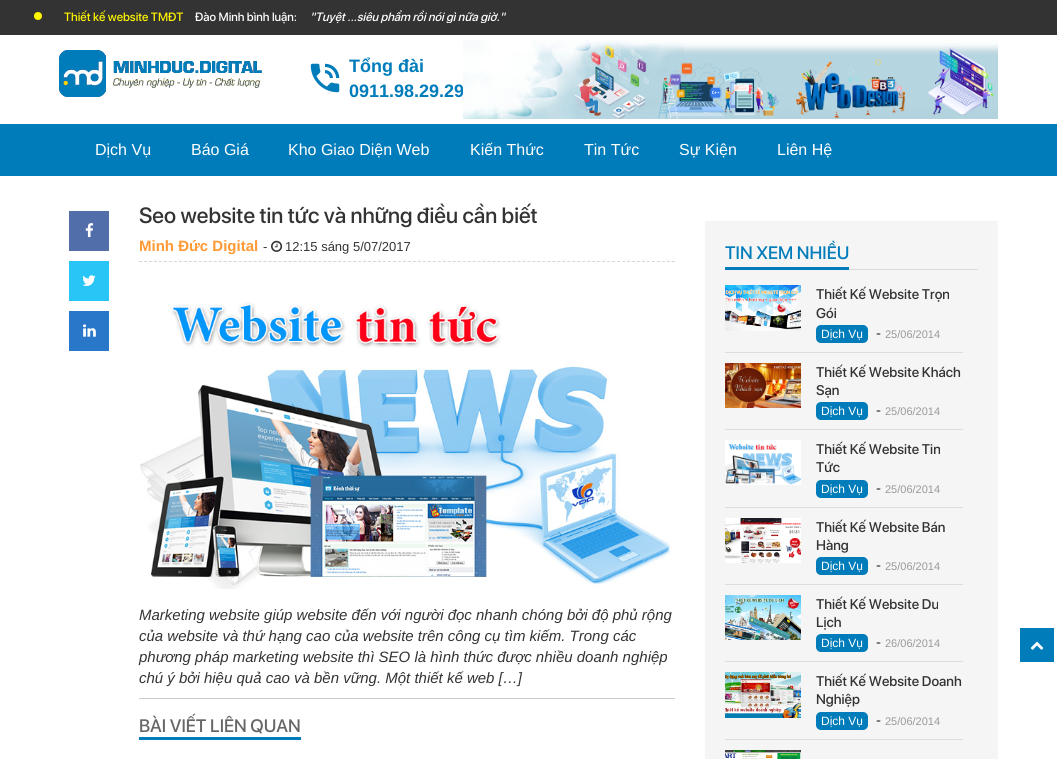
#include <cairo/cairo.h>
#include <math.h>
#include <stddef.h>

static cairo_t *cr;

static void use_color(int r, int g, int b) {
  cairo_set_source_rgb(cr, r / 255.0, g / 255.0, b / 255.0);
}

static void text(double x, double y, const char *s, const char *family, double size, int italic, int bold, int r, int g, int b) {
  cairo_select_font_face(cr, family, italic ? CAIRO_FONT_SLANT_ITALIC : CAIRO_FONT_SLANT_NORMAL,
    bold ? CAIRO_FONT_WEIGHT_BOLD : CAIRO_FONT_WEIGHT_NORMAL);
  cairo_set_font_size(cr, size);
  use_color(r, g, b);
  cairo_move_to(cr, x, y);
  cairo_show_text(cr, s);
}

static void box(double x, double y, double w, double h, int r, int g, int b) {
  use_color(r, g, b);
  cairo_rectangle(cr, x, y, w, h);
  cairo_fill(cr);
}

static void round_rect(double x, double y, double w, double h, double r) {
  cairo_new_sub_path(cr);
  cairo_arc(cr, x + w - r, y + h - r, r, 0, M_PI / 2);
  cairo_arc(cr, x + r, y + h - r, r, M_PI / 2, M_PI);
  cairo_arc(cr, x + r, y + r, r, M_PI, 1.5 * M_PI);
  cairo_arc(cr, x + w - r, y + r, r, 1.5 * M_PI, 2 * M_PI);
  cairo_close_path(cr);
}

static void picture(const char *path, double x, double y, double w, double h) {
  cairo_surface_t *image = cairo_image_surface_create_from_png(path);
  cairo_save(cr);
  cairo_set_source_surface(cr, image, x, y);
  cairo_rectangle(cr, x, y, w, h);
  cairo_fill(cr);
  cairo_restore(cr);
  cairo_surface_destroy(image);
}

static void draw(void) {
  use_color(255, 255, 255);
  cairo_paint(cr);
  box(0, 0, 1057, 35, 51, 51, 51);
  use_color(255, 246, 0);
  cairo_arc(cr, 38, 16, 4, 0, 2 * M_PI);
  cairo_fill(cr);
  picture("img_01.png", 59, 50, 203, 47);
  picture("img_02.png", 310, 63, 30, 30);
  box(0, 124, 1057, 52, 0, 124, 186);
  box(69, 211, 40, 40, 81, 110, 171);
  picture("img_04.png", 85, 223, 9, 15);
  box(69, 261, 40, 40, 41, 197, 246);
  picture("img_05.png", 82, 275, 14, 11);
  box(69, 311, 40, 40, 41, 119, 201);
  picture("img_06.png", 83, 324, 13, 13);
  cairo_new_path(cr);
  cairo_move_to(cr, 139, 261.5);
  cairo_line_to(cr, 675, 261.5);
  use_color(214, 214, 214);
  cairo_set_line_width(cr, 1);
  cairo_set_dash(cr, (double[]){3, 1.98}, 2, 0);
  cairo_stroke(cr);
  picture("img_07.png", 271, 240, 12, 12);
  picture("img_08.png", 140, 302, 531, 287);
  box(139, 698, 536, 1, 205, 205, 205);
  box(139, 737, 162, 3, 0, 124, 186);
  box(705, 221, 293, 538, 245, 245, 245);
  box(849, 269, 129, 1, 218, 218, 218);
  box(725, 267, 124, 3, 0, 124, 186);
  picture("img_09.png", 725, 285, 76, 46);
  round_rect(816, 325, 52, 18, 5);
  cairo_fill(cr);
  box(725, 352, 238, 1, 221, 221, 221);
  picture("img_10.png", 725, 363, 76, 45);
  use_color(0, 124, 186);
  round_rect(816, 402, 52, 18, 5);
  cairo_fill(cr);
  box(725, 429, 238, 1, 221, 221, 221);
  picture("img_11.png", 725, 440, 76, 45);
  use_color(0, 124, 186);
  round_rect(816, 480, 52, 18, 5);
  cairo_fill(cr);
  box(725, 507, 238, 1, 221, 221, 221);
  picture("img_12.png", 725, 518, 76, 45);
  use_color(0, 124, 186);
  round_rect(816, 557, 52, 18, 5);
  cairo_fill(cr);
  box(725, 584, 238, 1, 221, 221, 221);
  picture("img_13.png", 725, 595, 76, 45);
  use_color(0, 124, 186);
  round_rect(816, 634, 52, 18, 5);
  cairo_fill(cr);
  box(725, 661, 238, 1, 221, 221, 221);
  picture("img_14.png", 725, 672, 76, 46);
  use_color(0, 124, 186);
  round_rect(816, 712, 52, 18, 5);
  cairo_fill(cr);
  box(725, 739, 238, 1, 221, 221, 221);
  picture("img_15.png", 725, 750, 76, 9);
  box(1020, 628, 34, 34, 0, 124, 186);
  picture("img_16.png", 1030, 641, 14, 9);
  text(64, 21, "Thiết kế website TMĐT", "SF Pro Display Medium", 12, 0, 0, 255, 246, 0);
  text(195, 21, "Đào Minh bình luận:", "SF Pro Display Medium", 12, 0, 0, 255, 255, 255);
  cairo_save(cr);
  cairo_rectangle(cr, 59, 10, 455, 13);
  cairo_clip(cr);
  text(310, 21, "\"Tuyệt ...siêu phẩm rồi nói gì nữa giờ.\"", "SF Pro Display Medium", 12, 1, 0, 255, 255, 255);
  cairo_restore(cr);
  text(349, 72, "Tổng đài", "Liberation Sans", 18, 0, 1, 0, 124, 186);
  text(349, 97, "0911.98.29.29", "Liberation Sans", 18, 0, 1, 0, 124, 186);
  picture("img_03.png", 463, 40, 535, 79);
  text(95, 155, "Dịch Vụ", "Liberation Sans", 16, 0, 0, 255, 255, 255);
  text(191, 155, "Báo Giá", "Liberation Sans", 16, 0, 0, 255, 255, 255);
  text(288, 155, "Kho Giao Diện Web", "Liberation Sans", 16, 0, 0, 255, 255, 255);
  text(470, 155, "Kiến Thức", "Liberation Sans", 16, 0, 0, 255, 255, 255);
  text(584, 155, "Tin Tức", "Liberation Sans", 16, 0, 0, 255, 255, 255);
  text(679, 155, "Sự Kiện", "Liberation Sans", 16, 0, 0, 255, 255, 255);
  text(777, 155, "Liên Hệ", "Liberation Sans", 16, 0, 0, 255, 255, 255);
  text(139, 223, "Seo website tin tức và những điều cần biết", "SF Pro Display Medium", 22, 0, 0, 51, 51, 51);
  text(139, 251, "Minh Đức Digital", "Liberation Sans", 15, 0, 1, 255, 153, 51);
  text(263, 251, "-", "Liberation Sans", 13, 0, 0, 51, 51, 51);
  text(285, 251, "12:15 sáng 5/07/2017", "Liberation Sans", 13, 0, 0, 51, 51, 51);
  text(139, 620, "Marketing website giúp website đến với người đọc nhanh chóng bởi độ phủ rộng", "Liberation Sans", 15, 1, 0, 51, 51, 51);
  text(139, 641, "của website và thứ hạng cao của website trên công cụ tìm kiếm. Trong các", "Liberation Sans", 15, 1, 0, 51, 51, 51);
  text(139, 662, "phương pháp marketing website thì SEO là hình thức được nhiều doanh nghiệp", "Liberation Sans", 15, 1, 0, 51, 51, 51);
  text(139, 683, "chú ý bởi hiệu quả cao và bền vững. Một thiết kế web […]", "Liberation Sans", 15, 1, 0, 51, 51, 51);
  text(139, 732, "BÀI VIẾT LIÊN QUAN", "SF Pro Display Medium", 18, 0, 0, 102, 102, 102);
  text(725, 259, "TIN XEM NHIỀU", "SF Pro Display Medium", 18, 0, 0, 0, 124, 186);
  text(816, 299, "Thiết Kế Website Trọn", "SF Pro Display Medium", 14, 0, 0, 51, 51, 51);
  text(816, 318, "Gói", "SF Pro Display Medium", 14, 0, 0, 51, 51, 51);
  text(821, 338, "Dịch Vụ", "Liberation Sans", 12, 0, 0, 255, 255, 255);
  text(876, 338, "-", "Liberation Sans", 15, 0, 0, 51, 51, 51);
  text(885, 338, "25/06/2014", "Liberation Sans", 11, 0, 0, 153, 153, 153);
  text(816, 377, "Thiết Kế Website Khách", "SF Pro Display Medium", 14, 0, 0, 51, 51, 51);
  text(816, 395, "Sạn", "SF Pro Display Medium", 14, 0, 0, 51, 51, 51);
  text(821, 415, "Dịch Vụ", "Liberation Sans", 12, 0, 0, 255, 255, 255);
  text(876, 415, "-", "Liberation Sans", 15, 0, 0, 51, 51, 51);
  text(885, 415, "25/06/2014", "Liberation Sans", 11, 0, 0, 153, 153, 153);
  text(816, 454, "Thiết Kế Website Tin", "SF Pro Display Medium", 14, 0, 0, 51, 51, 51);
  text(816, 472, "Tức", "SF Pro Display Medium", 14, 0, 0, 51, 51, 51);
  text(821, 493, "Dịch Vụ", "Liberation Sans", 12, 0, 0, 255, 255, 255);
  text(876, 493, "-", "Liberation Sans", 15, 0, 0, 51, 51, 51);
  text(885, 493, "25/06/2014", "Liberation Sans", 11, 0, 0, 153, 153, 153);
  text(816, 532, "Thiết Kế Website Bán", "SF Pro Display Medium", 14, 0, 0, 51, 51, 51);
  text(816, 550, "Hàng", "SF Pro Display Medium", 14, 0, 0, 51, 51, 51);
  text(821, 570, "Dịch Vụ", "Liberation Sans", 12, 0, 0, 255, 255, 255);
  text(876, 570, "-", "Liberation Sans", 15, 0, 0, 51, 51, 51);
  text(885, 570, "25/06/2014", "Liberation Sans", 11, 0, 0, 153, 153, 153);
  text(816, 609, "Thiết Kế Website Du", "SF Pro Display Medium", 14, 0, 0, 51, 51, 51);
  text(816, 627, "Lịch", "SF Pro Display Medium", 14, 0, 0, 51, 51, 51);
  text(821, 647, "Dịch Vụ", "Liberation Sans", 12, 0, 0, 255, 255, 255);
  text(876, 647, "-", "Liberation Sans", 15, 0, 0, 51, 51, 51);
  text(885, 647, "26/06/2014", "Liberation Sans", 11, 0, 0, 153, 153, 153);
  text(816, 686, "Thiết Kế Website Doanh", "SF Pro Display Medium", 14, 0, 0, 51, 51, 51);
  text(816, 704, "Nghiệp", "SF Pro Display Medium", 14, 0, 0, 51, 51, 51);
  text(821, 725, "Dịch Vụ", "Liberation Sans", 12, 0, 0, 255, 255, 255);
  text(876, 725, "-", "Liberation Sans", 15, 0, 0, 51, 51, 51);
  text(885, 725, "25/06/2014", "Liberation Sans", 11, 0, 0, 153, 153, 153);
}

int main(void) {
  cairo_surface_t *surface = cairo_image_surface_create(CAIRO_FORMAT_RGB24, 1057, 759);
  cr = cairo_create(surface);
  cairo_font_options_t *options = cairo_font_options_create();
  cairo_font_options_set_hint_metrics(options, CAIRO_HINT_METRICS_OFF);
  cairo_font_options_set_hint_style(options, CAIRO_HINT_STYLE_NONE);
  cairo_set_font_options(cr, options);
  cairo_set_miter_limit(cr, 4);
  draw();
  cairo_surface_write_to_png(surface, "out.png");
  cairo_font_options_destroy(options);
  cairo_destroy(cr);
  cairo_surface_destroy(surface);
  return 0;
}
